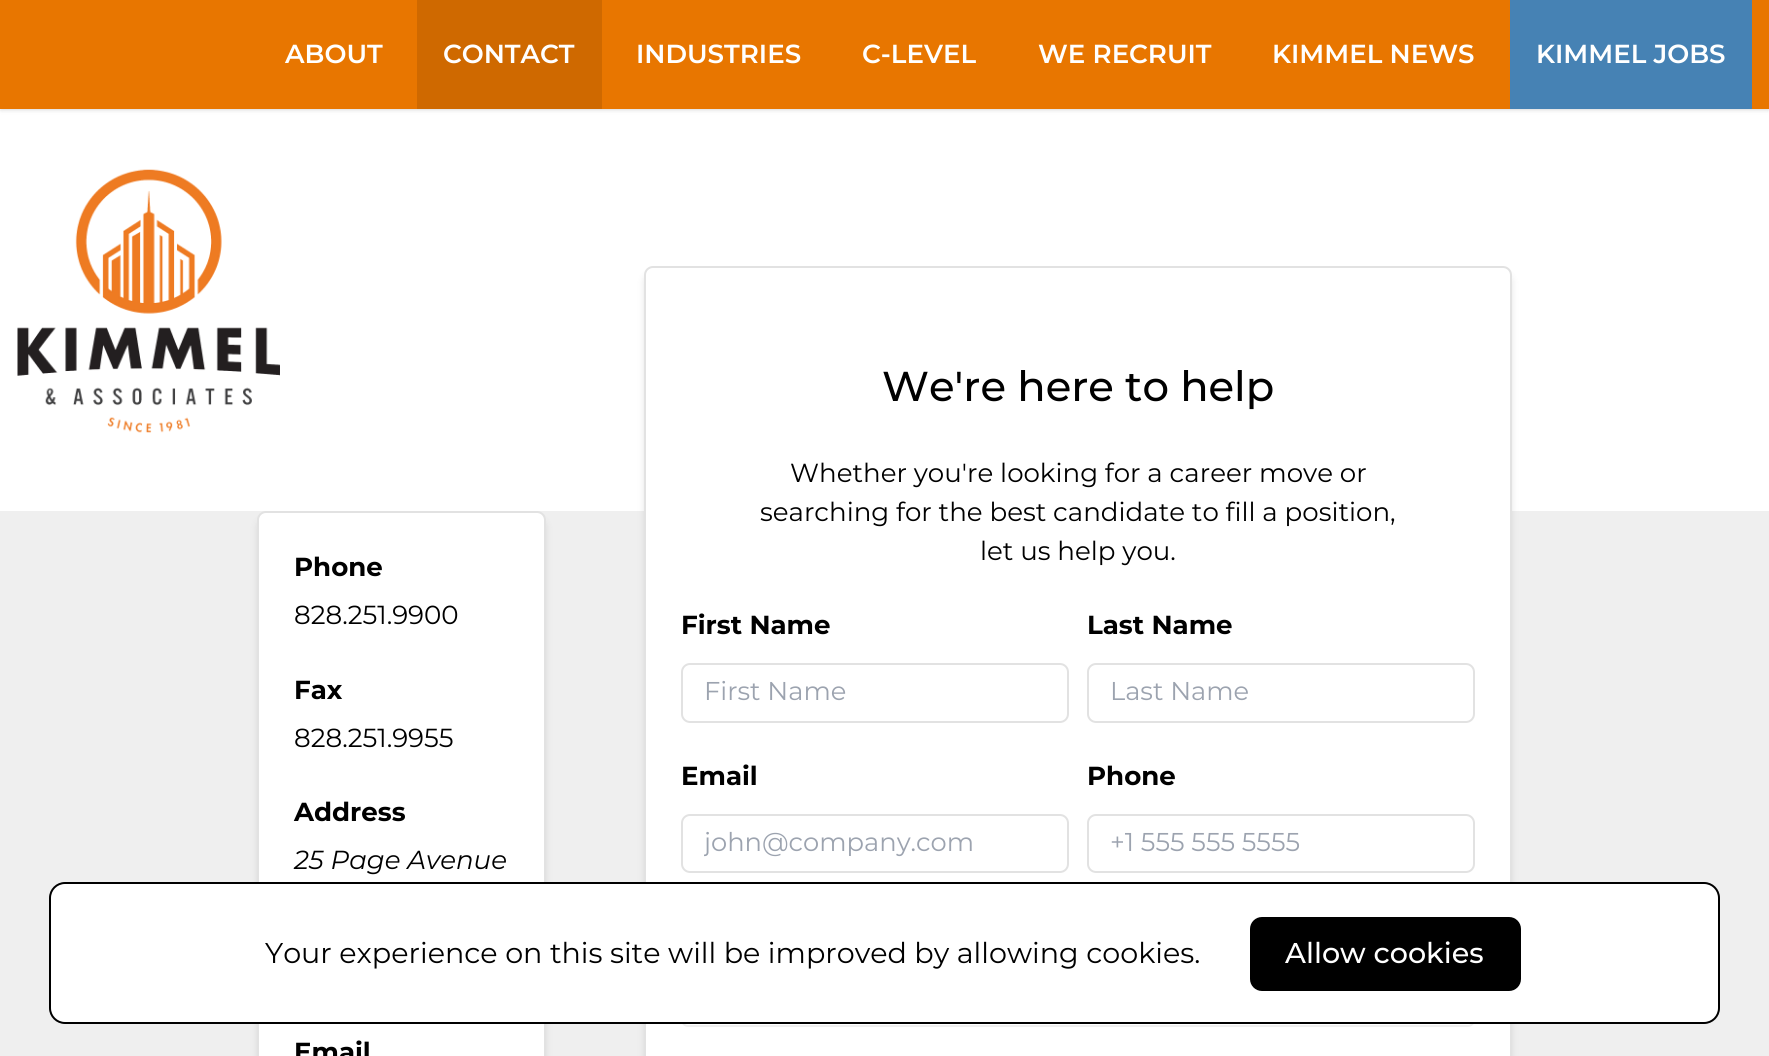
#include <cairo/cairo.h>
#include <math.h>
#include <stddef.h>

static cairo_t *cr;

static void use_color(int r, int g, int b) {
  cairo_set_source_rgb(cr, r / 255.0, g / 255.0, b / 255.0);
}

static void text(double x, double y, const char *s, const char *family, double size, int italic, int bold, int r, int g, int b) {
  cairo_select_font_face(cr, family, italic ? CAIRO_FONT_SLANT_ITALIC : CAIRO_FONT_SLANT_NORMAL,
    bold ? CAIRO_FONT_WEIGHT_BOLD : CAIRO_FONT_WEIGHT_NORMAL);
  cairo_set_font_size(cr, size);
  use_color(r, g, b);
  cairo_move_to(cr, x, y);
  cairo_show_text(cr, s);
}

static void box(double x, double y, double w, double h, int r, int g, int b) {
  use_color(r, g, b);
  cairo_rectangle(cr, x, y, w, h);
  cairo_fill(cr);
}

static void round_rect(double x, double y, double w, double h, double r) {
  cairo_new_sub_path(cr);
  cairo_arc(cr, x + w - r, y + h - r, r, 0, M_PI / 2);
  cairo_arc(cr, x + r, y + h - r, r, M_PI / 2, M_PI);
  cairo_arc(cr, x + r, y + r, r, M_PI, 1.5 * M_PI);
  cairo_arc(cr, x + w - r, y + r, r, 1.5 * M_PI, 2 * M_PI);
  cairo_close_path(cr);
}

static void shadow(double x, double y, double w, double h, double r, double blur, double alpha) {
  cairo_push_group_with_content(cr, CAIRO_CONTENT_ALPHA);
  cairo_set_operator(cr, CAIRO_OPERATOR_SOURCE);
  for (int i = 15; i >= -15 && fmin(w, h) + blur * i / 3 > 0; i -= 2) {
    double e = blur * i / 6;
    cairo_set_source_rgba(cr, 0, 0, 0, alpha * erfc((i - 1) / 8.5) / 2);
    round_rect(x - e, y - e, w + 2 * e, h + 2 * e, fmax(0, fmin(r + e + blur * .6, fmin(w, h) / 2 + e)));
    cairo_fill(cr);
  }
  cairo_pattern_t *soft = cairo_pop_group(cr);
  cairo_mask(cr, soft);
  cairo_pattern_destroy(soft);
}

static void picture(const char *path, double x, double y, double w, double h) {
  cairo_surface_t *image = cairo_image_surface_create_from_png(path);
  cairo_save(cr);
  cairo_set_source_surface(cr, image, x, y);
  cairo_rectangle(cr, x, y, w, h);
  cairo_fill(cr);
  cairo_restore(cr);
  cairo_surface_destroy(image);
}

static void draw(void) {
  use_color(255, 255, 255);
  cairo_paint(cr);
  use_color(0, 0, 0);
  shadow(2, 4, 1766, 105, 0, 2, 0.1);
  shadow(0, 2, 1769, 108, 0, 2.5, 0.1);
  box(0, 0, 1769, 109, 232, 118, 0);
  box(417, 0, 185, 109, 207, 105, 0);
  box(1510, 0, 242, 109, 70, 130, 180);
  picture("img_01.png", 17, 169, 263, 264);
  box(0, 511, 1769, 545, 239, 239, 239);
  use_color(153, 153, 153);
  shadow(257, 518, 289, 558, 9, 3.5, 0.25);
  use_color(255, 255, 255);
  round_rect(258, 512, 287, 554, 8);
  cairo_fill_preserve(cr);
  use_color(226, 226, 226);
  cairo_stroke(cr);
  use_color(153, 153, 153);
  shadow(644, 273, 868, 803, 9, 3.5, 0.25);
  use_color(255, 255, 255);
  round_rect(645, 267, 866, 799, 8);
  cairo_fill_preserve(cr);
  use_color(226, 226, 226);
  cairo_stroke(cr);
  round_rect(682, 664, 386, 58, 8);
  cairo_stroke(cr);
  round_rect(1088, 664, 386, 58, 8);
  cairo_stroke(cr);
  round_rect(682, 815, 386, 57, 8);
  cairo_stroke(cr);
  round_rect(1088, 815, 386, 57, 8);
  cairo_stroke(cr);
  round_rect(682, 967, 792, 59, 6);
  use_color(239, 239, 239);
  cairo_stroke(cr);
  use_color(255, 255, 255);
  round_rect(50, 883, 1669, 140, 15);
  cairo_fill_preserve(cr);
  use_color(0, 0, 0);
  cairo_stroke(cr);
  round_rect(1250, 917, 271, 74, 12);
  cairo_fill(cr);
  text(285, 63, "ABOUT", "Montserrat SemiBold", 26.1, 0, 0, 255, 255, 255);
  text(443, 63, "CONTACT", "Montserrat SemiBold", 26.1, 0, 0, 255, 255, 255);
  text(636, 63, "INDUSTRIES", "Montserrat SemiBold", 26.1, 0, 0, 255, 255, 255);
  text(862, 63, "C-LEVEL", "Montserrat SemiBold", 26.1, 0, 0, 255, 255, 255);
  text(1038, 63, "WE RECRUIT", "Montserrat SemiBold", 26.1, 0, 0, 255, 255, 255);
  text(1272, 63, "KIMMEL NEWS", "Montserrat SemiBold", 26.1, 0, 0, 255, 255, 255);
  text(1536, 63, "KIMMEL JOBS", "Montserrat SemiBold", 26.1, 0, 0, 255, 255, 255);
  text(294, 576, "Phone", "Montserrat", 26.1, 0, 1, 0, 0, 0);
  text(294, 624, "828.251.9900", "Montserrat", 26.1, 0, 0, 0, 0, 0);
  text(294, 699, "Fax", "Montserrat", 26.1, 0, 1, 0, 0, 0);
  text(294, 747, "828.251.9955", "Montserrat", 26.1, 0, 0, 0, 0, 0);
  text(294, 821, "Address", "Montserrat", 26.1, 0, 1, 0, 0, 0);
  text(294, 869, "25 Page Avenue", "Montserrat", 26.1, 1, 0, 0, 0, 0);
  text(294, 1061, "Email", "Montserrat", 26.1, 0, 1, 0, 0, 0);
  text(882, 401, "We're here to help", "Montserrat Medium", 41.75, 0, 0, 0, 0, 0);
  text(790, 482, "Whether you're looking for a career move or", "Montserrat", 26.1, 0, 0, 0, 0, 0);
  text(760, 521, "searching for the best candidate to fill a position,", "Montserrat", 26.1, 0, 0, 0, 0, 0);
  text(980, 560, "let us help you.", "Montserrat", 26.1, 0, 0, 0, 0, 0);
  text(681, 634, "First Name", "Montserrat", 26.1, 0, 1, 0, 0, 0);
  text(704, 700, "First Name", "Montserrat", 25.75, 0, 0, 156, 163, 175);
  text(1087, 634, "Last Name", "Montserrat", 26.1, 0, 1, 0, 0, 0);
  text(1110, 700, "Last Name", "Montserrat", 25.75, 0, 0, 156, 163, 175);
  text(681, 785, "Email", "Montserrat", 26.1, 0, 1, 0, 0, 0);
  cairo_save(cr);
  cairo_rectangle(cr, 704, 826, 343, 32);
  cairo_clip(cr);
  text(704, 851, "john@company.com", "Montserrat", 25.75, 0, 0, 156, 163, 175);
  cairo_restore(cr);
  text(1087, 785, "Phone", "Montserrat", 26.1, 0, 1, 0, 0, 0);
  text(1110, 851, "+1 555 555 5555", "Montserrat", 25.75, 0, 0, 156, 163, 175);
  text(265, 963, "Your experience on this site will be improved by allowing cookies.", "Montserrat", 28.6, 0, 0, 0, 0, 0);
  text(1285, 963, "Allow cookies", "Montserrat Medium", 28.6, 0, 0, 255, 255, 255);
}

int main(void) {
  cairo_surface_t *surface = cairo_image_surface_create(CAIRO_FORMAT_RGB24, 1769, 1056);
  cr = cairo_create(surface);
  cairo_font_options_t *options = cairo_font_options_create();
  cairo_font_options_set_hint_metrics(options, CAIRO_HINT_METRICS_OFF);
  cairo_font_options_set_hint_style(options, CAIRO_HINT_STYLE_NONE);
  cairo_set_font_options(cr, options);
  cairo_set_miter_limit(cr, 4);
  draw();
  cairo_surface_write_to_png(surface, "out.png");
  cairo_font_options_destroy(options);
  cairo_destroy(cr);
  cairo_surface_destroy(surface);
  return 0;
}
